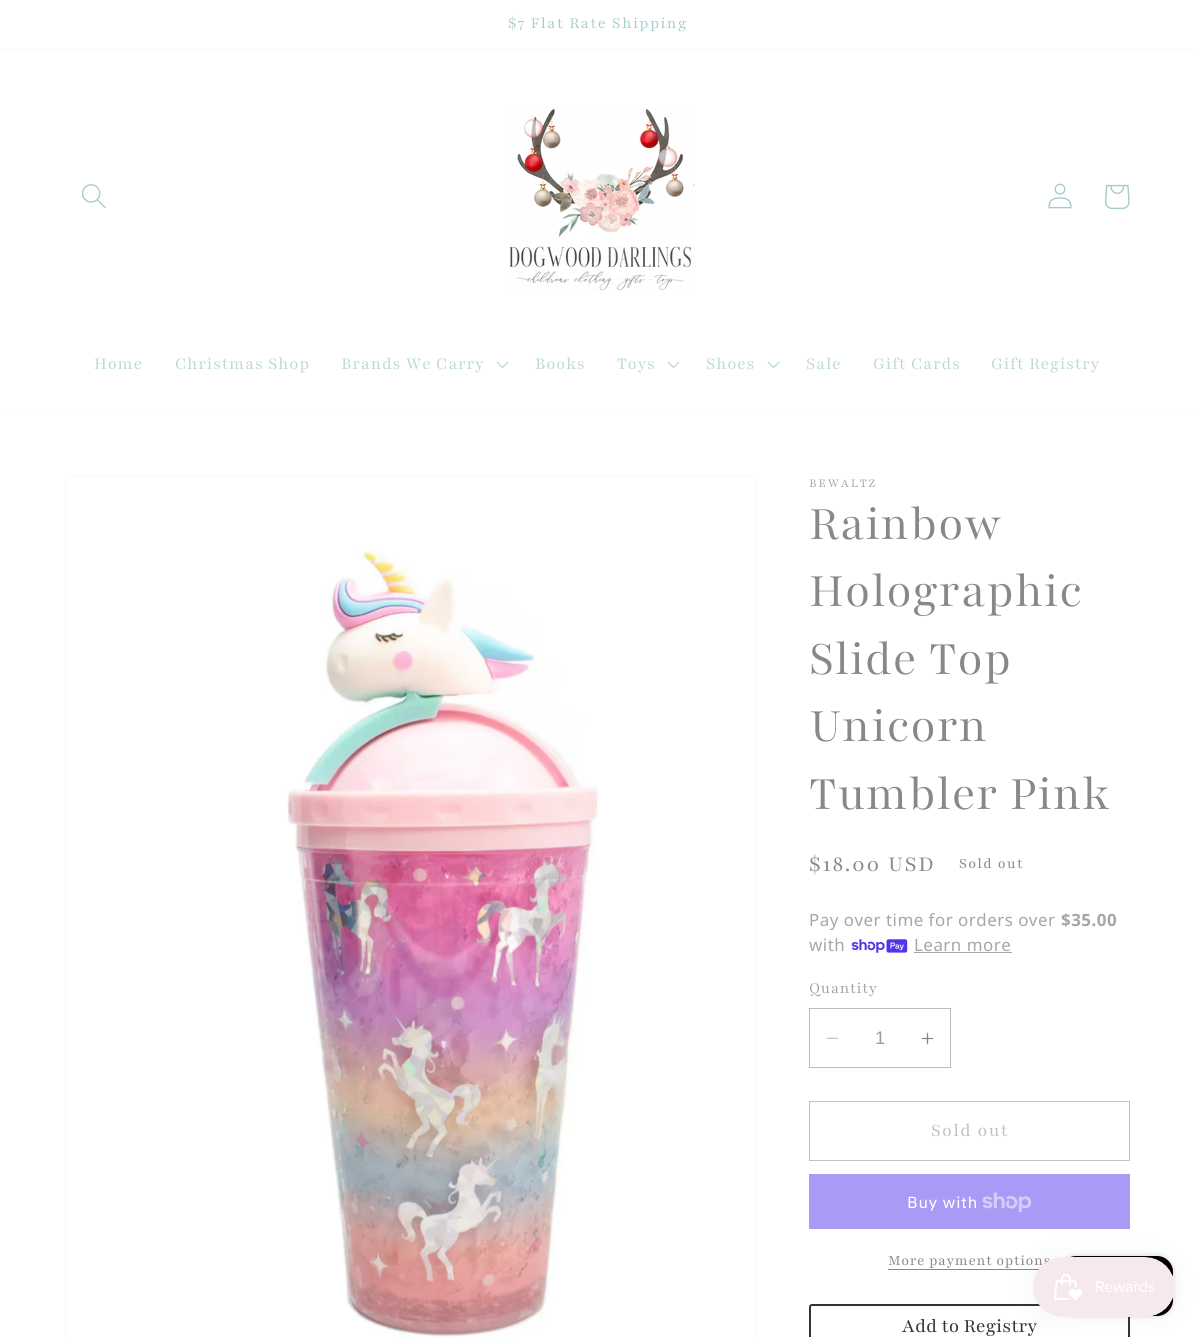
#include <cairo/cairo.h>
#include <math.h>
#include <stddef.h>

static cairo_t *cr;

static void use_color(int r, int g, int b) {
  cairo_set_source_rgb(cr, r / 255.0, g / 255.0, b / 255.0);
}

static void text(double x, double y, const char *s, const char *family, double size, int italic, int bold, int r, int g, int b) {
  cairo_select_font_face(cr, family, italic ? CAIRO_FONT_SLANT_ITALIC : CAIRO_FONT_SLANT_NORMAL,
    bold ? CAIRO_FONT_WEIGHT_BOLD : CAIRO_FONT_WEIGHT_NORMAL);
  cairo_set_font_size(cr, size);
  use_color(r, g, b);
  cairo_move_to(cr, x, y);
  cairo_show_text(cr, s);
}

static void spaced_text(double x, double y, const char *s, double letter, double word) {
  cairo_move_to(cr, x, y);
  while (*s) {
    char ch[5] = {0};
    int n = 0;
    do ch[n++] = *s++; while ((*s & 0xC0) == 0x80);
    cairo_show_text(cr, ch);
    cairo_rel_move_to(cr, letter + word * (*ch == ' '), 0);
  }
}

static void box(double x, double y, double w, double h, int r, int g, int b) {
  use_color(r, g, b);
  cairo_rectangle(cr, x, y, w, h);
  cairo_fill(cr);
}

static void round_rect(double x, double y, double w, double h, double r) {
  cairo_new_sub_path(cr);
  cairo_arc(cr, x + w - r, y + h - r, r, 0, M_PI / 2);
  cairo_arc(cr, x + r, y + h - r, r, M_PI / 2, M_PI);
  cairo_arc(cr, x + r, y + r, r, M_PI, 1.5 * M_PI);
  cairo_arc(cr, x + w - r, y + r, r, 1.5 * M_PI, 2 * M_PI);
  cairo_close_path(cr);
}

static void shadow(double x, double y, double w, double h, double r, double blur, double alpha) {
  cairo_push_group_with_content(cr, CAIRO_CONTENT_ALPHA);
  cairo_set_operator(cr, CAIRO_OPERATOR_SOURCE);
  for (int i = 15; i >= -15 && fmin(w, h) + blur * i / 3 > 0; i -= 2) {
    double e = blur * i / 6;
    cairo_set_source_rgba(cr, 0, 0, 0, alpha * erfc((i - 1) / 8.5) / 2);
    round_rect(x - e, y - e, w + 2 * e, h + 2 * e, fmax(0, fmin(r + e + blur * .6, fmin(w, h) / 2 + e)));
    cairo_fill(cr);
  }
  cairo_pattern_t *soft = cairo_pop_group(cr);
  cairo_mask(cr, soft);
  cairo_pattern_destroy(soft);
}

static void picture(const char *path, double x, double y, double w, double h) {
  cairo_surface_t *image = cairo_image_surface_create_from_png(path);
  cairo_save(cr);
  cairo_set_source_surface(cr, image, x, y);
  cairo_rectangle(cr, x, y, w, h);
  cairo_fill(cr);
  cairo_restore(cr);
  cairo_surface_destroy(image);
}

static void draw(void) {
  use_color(255, 255, 255);
  cairo_paint(cr);
  box(0, 48, 1195, 1, 248, 251, 251);
  box(0, 411, 1195, 1, 248, 251, 251);
  picture("img_01.png", 81, 184, 25, 24);
  picture("img_02.png", 508, 107, 188, 184);
  picture("img_03.png", 1048, 183, 24, 26);
  picture("img_04.png", 1104, 184, 26, 26);
  picture("img_05.png", 496, 361, 13, 7);
  picture("img_05.png", 667, 361, 13, 7);
  picture("img_05.png", 767, 361, 13, 7);
  cairo_rectangle(cr, 65.5, 476.5, 691, 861);
  use_color(249, 249, 249);
  cairo_set_line_width(cr, 1);
  cairo_stroke(cr);
  picture("img_06.png", 287, 550, 313, 787);
  picture("img_07.png", 851, 939, 57, 14);
  box(914, 952, 98, 1, 166, 166, 166);
  picture("img_08.png", 826, 1037, 13, 2);
  picture("img_09.png", 921, 1032, 13, 13);
  cairo_rectangle(cr, 809.5, 1008.5, 141, 59);
  use_color(190, 190, 190);
  cairo_stroke(cr);
  cairo_rectangle(cr, 809.5, 1101.5, 320, 59);
  use_color(197, 192, 192);
  cairo_stroke(cr);
  box(809, 1174, 321, 55, 170, 153, 245);
  picture("img_10.png", 982, 1192, 50, 20);
  box(888, 1269, 152, 1, 136, 136, 136);
  round_rect(810, 1305, 319, 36, 2);
  use_color(51, 51, 51);
  cairo_set_line_width(cr, 2);
  cairo_stroke(cr);
  use_color(0, 0, 0);
  shadow(1060, 1256, 113, 60, 16, 2.5, 0.15);
  use_color(0, 0, 0);
  round_rect(1060, 1256, 113, 60, 16);
  cairo_fill(cr);
  use_color(0, 0, 0);
  shadow(1033, 1257, 142, 60, 30, 12.5, 0.05);
  cairo_select_font_face(cr, "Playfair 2 Light", CAIRO_FONT_SLANT_NORMAL, CAIRO_FONT_WEIGHT_NORMAL);
  cairo_set_font_size(cr, 16.9);
  use_color(164, 204, 202);
  spaced_text(508, 28, "$7 Flat Rate Shipping", 1.3, 0);
  cairo_select_font_face(cr, "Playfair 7", CAIRO_FONT_SLANT_NORMAL, CAIRO_FONT_WEIGHT_NORMAL);
  cairo_set_font_size(cr, 18.25);
  use_color(187, 217, 215);
  spaced_text(94, 369, "Home", 0.75, 0);
  spaced_text(175, 369, "Christmas Shop", 0.75, 0);
  spaced_text(341, 369, "Brands We Carry", 0.75, 0);
  spaced_text(535, 369, "Books", 0.75, 0);
  spaced_text(617, 369, "Toys", 0.75, 0);
  spaced_text(706, 369, "Shoes", 0.75, 0);
  spaced_text(806, 369, "Sale", 0.75, 0);
  spaced_text(873, 369, "Gift Cards", 0.75, 0);
  spaced_text(991, 369, "Gift Registry", 0.75, 0);
  cairo_select_font_face(cr, "Playfair", CAIRO_FONT_SLANT_NORMAL, CAIRO_FONT_WEIGHT_NORMAL);
  cairo_set_font_size(cr, 13);
  use_color(166, 166, 166);
  spaced_text(809, 487, "BEWALTZ", 1.75, 0);
  cairo_select_font_face(cr, "Playfair Light", CAIRO_FONT_SLANT_NORMAL, CAIRO_FONT_WEIGHT_NORMAL);
  cairo_set_font_size(cr, 52);
  use_color(136, 136, 136);
  spaced_text(809, 539, "Rainbow", 0.75, 0);
  spaced_text(809, 606, "Holographic", 0.75, 0);
  spaced_text(809, 674, "Slide Top", 0.75, 0);
  spaced_text(809, 741, "Unicorn", 0.75, 0);
  spaced_text(809, 809, "Tumbler Pink", 0.75, 0);
  cairo_select_font_face(cr, "Playfair 2", CAIRO_FONT_SLANT_NORMAL, CAIRO_FONT_WEIGHT_NORMAL);
  cairo_set_font_size(cr, 23.5);
  spaced_text(809, 871, "$18.00 USD", 1.75, 0);
  cairo_select_font_face(cr, "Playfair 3", CAIRO_FONT_SLANT_NORMAL, CAIRO_FONT_WEIGHT_NORMAL);
  cairo_set_font_size(cr, 15.6);
  spaced_text(959, 868, "Sold out", 1.3, 0);
  cairo_select_font_face(cr, "Noto Sans", CAIRO_FONT_SLANT_NORMAL, CAIRO_FONT_WEIGHT_NORMAL);
  cairo_set_font_size(cr, 16.9);
  use_color(166, 166, 166);
  spaced_text(809, 926, "Pay over time for orders over", 0.5, 0);
  cairo_select_font_face(cr, "Noto Sans", CAIRO_FONT_SLANT_NORMAL, CAIRO_FONT_WEIGHT_BOLD);
  spaced_text(1061, 926, "$35.00", 0.5, 0);
  cairo_select_font_face(cr, "Noto Sans", CAIRO_FONT_SLANT_NORMAL, CAIRO_FONT_WEIGHT_NORMAL);
  spaced_text(809, 951, "with", 0.5, 0);
  spaced_text(914, 951, "Learn more", 0.5, 0);
  cairo_select_font_face(cr, "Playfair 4", CAIRO_FONT_SLANT_NORMAL, CAIRO_FONT_WEIGHT_NORMAL);
  spaced_text(809, 993, "Quantity", 0.5, 0);
  text(875, 1044, "1", "Liberation Sans", 18.25, 0, 0, 154, 154, 154);
  cairo_select_font_face(cr, "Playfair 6", CAIRO_FONT_SLANT_NORMAL, CAIRO_FONT_WEIGHT_NORMAL);
  cairo_set_font_size(cr, 19.5);
  use_color(197, 192, 192);
  spaced_text(931, 1136, "Sold out", 1.3, 0);
  cairo_select_font_face(cr, "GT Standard", CAIRO_FONT_SLANT_NORMAL, CAIRO_FONT_WEIGHT_NORMAL);
  cairo_set_font_size(cr, 16);
  use_color(255, 255, 255);
  spaced_text(907, 1208, "Buy with", 0.75, 0);
  cairo_select_font_face(cr, "Playfair 3", CAIRO_FONT_SLANT_NORMAL, CAIRO_FONT_WEIGHT_NORMAL);
  cairo_set_font_size(cr, 15.6);
  use_color(136, 136, 136);
  spaced_text(888, 1265, "More payment options", 0.6, 0);
  text(902, 1332, "Add to Registry", "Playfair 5", 20.75, 0, 0, 51, 51, 51);
  picture("img_11.png", 1033, 1257, 142, 60);
}

int main(void) {
  cairo_surface_t *surface = cairo_image_surface_create(CAIRO_FORMAT_RGB24, 1195, 1337);
  cr = cairo_create(surface);
  cairo_font_options_t *options = cairo_font_options_create();
  cairo_font_options_set_hint_metrics(options, CAIRO_HINT_METRICS_OFF);
  cairo_font_options_set_hint_style(options, CAIRO_HINT_STYLE_NONE);
  cairo_set_font_options(cr, options);
  cairo_set_miter_limit(cr, 4);
  draw();
  cairo_surface_write_to_png(surface, "out.png");
  cairo_font_options_destroy(options);
  cairo_destroy(cr);
  cairo_surface_destroy(surface);
  return 0;
}
